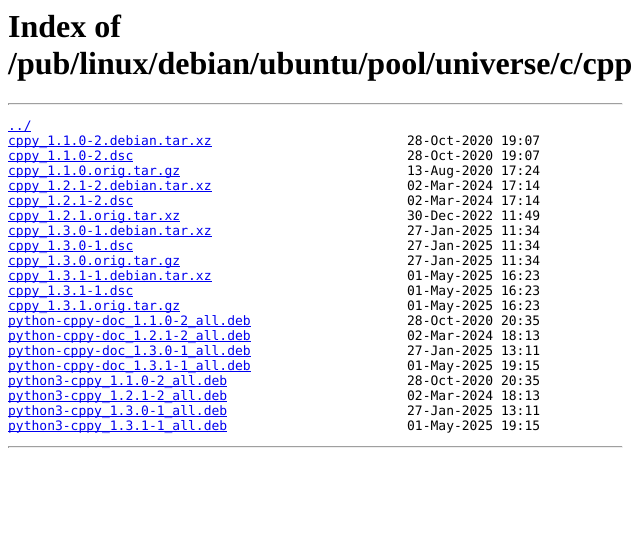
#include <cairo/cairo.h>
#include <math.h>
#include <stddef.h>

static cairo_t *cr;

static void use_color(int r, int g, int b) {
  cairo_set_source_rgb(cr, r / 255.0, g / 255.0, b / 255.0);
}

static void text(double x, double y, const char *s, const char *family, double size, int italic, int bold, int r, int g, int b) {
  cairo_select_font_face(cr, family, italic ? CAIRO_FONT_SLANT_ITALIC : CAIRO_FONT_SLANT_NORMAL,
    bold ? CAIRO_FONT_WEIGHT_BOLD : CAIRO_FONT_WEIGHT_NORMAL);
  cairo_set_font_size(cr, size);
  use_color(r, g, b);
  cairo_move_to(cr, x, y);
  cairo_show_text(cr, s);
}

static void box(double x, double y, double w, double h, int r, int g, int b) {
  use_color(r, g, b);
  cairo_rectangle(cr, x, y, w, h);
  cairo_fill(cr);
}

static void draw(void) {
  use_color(255, 255, 255);
  cairo_paint(cr);
  box(8, 103, 615, 1, 159, 159, 159);
  box(622, 103, 1, 2, 238, 238, 238);
  box(8, 104, 615, 1, 238, 238, 238);
  box(8, 103, 1, 2, 159, 159, 159);
  box(8, 131, 23, 1, 0, 0, 238);
  box(8, 146, 204, 1, 0, 0, 238);
  box(8, 161, 125, 1, 0, 0, 238);
  box(8, 176, 172, 1, 0, 0, 238);
  box(8, 191, 204, 1, 0, 0, 238);
  box(8, 206, 125, 1, 0, 0, 238);
  box(8, 221, 172, 1, 0, 0, 238);
  box(8, 236, 204, 1, 0, 0, 238);
  box(8, 251, 125, 1, 0, 0, 238);
  box(8, 266, 172, 1, 0, 0, 238);
  box(8, 281, 204, 1, 0, 0, 238);
  box(8, 296, 125, 1, 0, 0, 238);
  box(8, 311, 172, 1, 0, 0, 238);
  box(8, 326, 243, 1, 0, 0, 238);
  box(8, 341, 243, 1, 0, 0, 238);
  box(8, 356, 243, 1, 0, 0, 238);
  box(8, 371, 243, 1, 0, 0, 238);
  box(8, 386, 219, 1, 0, 0, 238);
  box(8, 401, 219, 1, 0, 0, 238);
  box(8, 416, 219, 1, 0, 0, 238);
  box(8, 431, 219, 1, 0, 0, 238);
  box(8, 446, 615, 1, 159, 159, 159);
  box(622, 446, 1, 2, 238, 238, 238);
  box(8, 447, 615, 1, 238, 238, 238);
  box(8, 446, 1, 2, 159, 159, 159);
  text(8, 37, "Index of", "Liberation Serif", 32, 0, 1, 0, 0, 0);
  text(8, 74, "/pub/linux/debian/ubuntu/pool/universe/c/cpp", "Liberation Serif", 32, 0, 1, 0, 0, 0);
  text(8, 130, "../", "DejaVu Sans Mono", 13, 0, 0, 0, 0, 238);
  text(8, 145, "cppy_1.1.0-2.debian.tar.xz", "DejaVu Sans Mono", 13, 0, 0, 0, 0, 238);
  text(407, 145, "28-Oct-2020 19:07", "DejaVu Sans Mono", 13, 0, 0, 0, 0, 0);
  text(8, 160, "cppy_1.1.0-2.dsc", "DejaVu Sans Mono", 13, 0, 0, 0, 0, 238);
  text(407, 160, "28-Oct-2020 19:07", "DejaVu Sans Mono", 13, 0, 0, 0, 0, 0);
  text(8, 175, "cppy_1.1.0.orig.tar.gz", "DejaVu Sans Mono", 13, 0, 0, 0, 0, 238);
  text(407, 175, "13-Aug-2020 17:24", "DejaVu Sans Mono", 13, 0, 0, 0, 0, 0);
  text(8, 190, "cppy_1.2.1-2.debian.tar.xz", "DejaVu Sans Mono", 13, 0, 0, 0, 0, 238);
  text(407, 190, "02-Mar-2024 17:14", "DejaVu Sans Mono", 13, 0, 0, 0, 0, 0);
  text(8, 205, "cppy_1.2.1-2.dsc", "DejaVu Sans Mono", 13, 0, 0, 0, 0, 238);
  text(407, 205, "02-Mar-2024 17:14", "DejaVu Sans Mono", 13, 0, 0, 0, 0, 0);
  text(8, 220, "cppy_1.2.1.orig.tar.xz", "DejaVu Sans Mono", 13, 0, 0, 0, 0, 238);
  text(407, 220, "30-Dec-2022 11:49", "DejaVu Sans Mono", 13, 0, 0, 0, 0, 0);
  text(8, 235, "cppy_1.3.0-1.debian.tar.xz", "DejaVu Sans Mono", 13, 0, 0, 0, 0, 238);
  text(407, 235, "27-Jan-2025 11:34", "DejaVu Sans Mono", 13, 0, 0, 0, 0, 0);
  text(8, 250, "cppy_1.3.0-1.dsc", "DejaVu Sans Mono", 13, 0, 0, 0, 0, 238);
  text(407, 250, "27-Jan-2025 11:34", "DejaVu Sans Mono", 13, 0, 0, 0, 0, 0);
  text(8, 265, "cppy_1.3.0.orig.tar.gz", "DejaVu Sans Mono", 13, 0, 0, 0, 0, 238);
  text(407, 265, "27-Jan-2025 11:34", "DejaVu Sans Mono", 13, 0, 0, 0, 0, 0);
  text(8, 280, "cppy_1.3.1-1.debian.tar.xz", "DejaVu Sans Mono", 13, 0, 0, 0, 0, 238);
  text(407, 280, "01-May-2025 16:23", "DejaVu Sans Mono", 13, 0, 0, 0, 0, 0);
  text(8, 295, "cppy_1.3.1-1.dsc", "DejaVu Sans Mono", 13, 0, 0, 0, 0, 238);
  text(407, 295, "01-May-2025 16:23", "DejaVu Sans Mono", 13, 0, 0, 0, 0, 0);
  text(8, 310, "cppy_1.3.1.orig.tar.gz", "DejaVu Sans Mono", 13, 0, 0, 0, 0, 238);
  text(407, 310, "01-May-2025 16:23", "DejaVu Sans Mono", 13, 0, 0, 0, 0, 0);
  text(8, 325, "python-cppy-doc_1.1.0-2_all.deb", "DejaVu Sans Mono", 13, 0, 0, 0, 0, 238);
  text(407, 325, "28-Oct-2020 20:35", "DejaVu Sans Mono", 13, 0, 0, 0, 0, 0);
  text(8, 340, "python-cppy-doc_1.2.1-2_all.deb", "DejaVu Sans Mono", 13, 0, 0, 0, 0, 238);
  text(407, 340, "02-Mar-2024 18:13", "DejaVu Sans Mono", 13, 0, 0, 0, 0, 0);
  text(8, 355, "python-cppy-doc_1.3.0-1_all.deb", "DejaVu Sans Mono", 13, 0, 0, 0, 0, 238);
  text(407, 355, "27-Jan-2025 13:11", "DejaVu Sans Mono", 13, 0, 0, 0, 0, 0);
  text(8, 370, "python-cppy-doc_1.3.1-1_all.deb", "DejaVu Sans Mono", 13, 0, 0, 0, 0, 238);
  text(407, 370, "01-May-2025 19:15", "DejaVu Sans Mono", 13, 0, 0, 0, 0, 0);
  text(8, 385, "python3-cppy_1.1.0-2_all.deb", "DejaVu Sans Mono", 13, 0, 0, 0, 0, 238);
  text(407, 385, "28-Oct-2020 20:35", "DejaVu Sans Mono", 13, 0, 0, 0, 0, 0);
  text(8, 400, "python3-cppy_1.2.1-2_all.deb", "DejaVu Sans Mono", 13, 0, 0, 0, 0, 238);
  text(407, 400, "02-Mar-2024 18:13", "DejaVu Sans Mono", 13, 0, 0, 0, 0, 0);
  text(8, 415, "python3-cppy_1.3.0-1_all.deb", "DejaVu Sans Mono", 13, 0, 0, 0, 0, 238);
  text(407, 415, "27-Jan-2025 13:11", "DejaVu Sans Mono", 13, 0, 0, 0, 0, 0);
  text(8, 430, "python3-cppy_1.3.1-1_all.deb", "DejaVu Sans Mono", 13, 0, 0, 0, 0, 238);
  text(407, 430, "01-May-2025 19:15", "DejaVu Sans Mono", 13, 0, 0, 0, 0, 0);
}

int main(void) {
  cairo_surface_t *surface = cairo_image_surface_create(CAIRO_FORMAT_RGB24, 631, 551);
  cr = cairo_create(surface);
  cairo_font_options_t *options = cairo_font_options_create();
  cairo_font_options_set_hint_metrics(options, CAIRO_HINT_METRICS_OFF);
  cairo_font_options_set_hint_style(options, CAIRO_HINT_STYLE_NONE);
  cairo_set_font_options(cr, options);
  cairo_set_miter_limit(cr, 4);
  draw();
  cairo_surface_write_to_png(surface, "out.png");
  cairo_font_options_destroy(options);
  cairo_destroy(cr);
  cairo_surface_destroy(surface);
  return 0;
}
